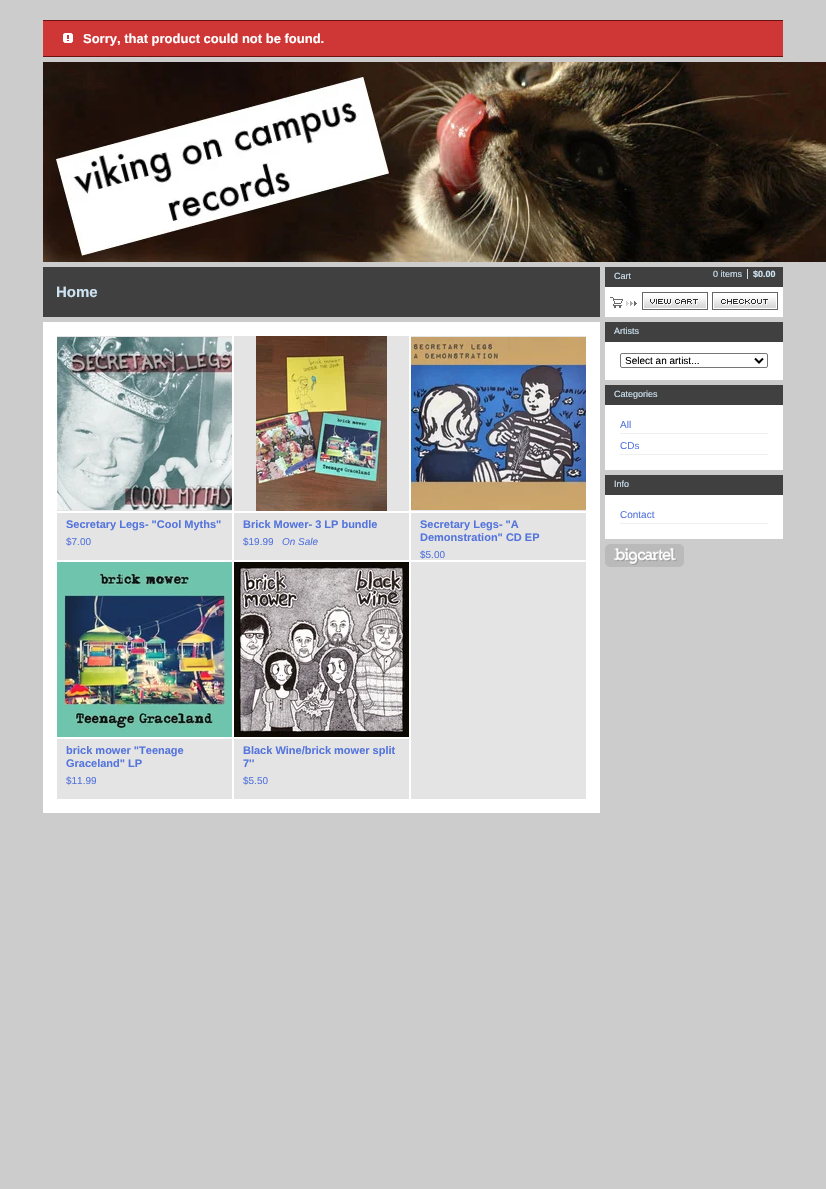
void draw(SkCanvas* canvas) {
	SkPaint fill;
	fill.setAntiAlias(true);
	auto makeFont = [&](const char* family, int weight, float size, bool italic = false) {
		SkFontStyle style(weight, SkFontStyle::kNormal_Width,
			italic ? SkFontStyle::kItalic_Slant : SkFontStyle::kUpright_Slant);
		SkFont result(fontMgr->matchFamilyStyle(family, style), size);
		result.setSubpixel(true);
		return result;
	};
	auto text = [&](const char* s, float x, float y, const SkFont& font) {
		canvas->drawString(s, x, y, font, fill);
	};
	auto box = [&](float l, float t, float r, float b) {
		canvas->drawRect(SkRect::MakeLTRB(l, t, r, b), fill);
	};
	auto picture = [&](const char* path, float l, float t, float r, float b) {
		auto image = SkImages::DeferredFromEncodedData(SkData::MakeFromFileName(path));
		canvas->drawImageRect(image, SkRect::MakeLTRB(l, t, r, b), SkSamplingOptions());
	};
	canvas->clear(0xFFCCCCCC);
	fill.setColor(0xFFCF3636);
	box(43, 21, 783, 56);
	fill.setColor(0xFF6C1010);
	box(43, 20, 783, 21);
	box(43, 56, 783, 57);
	picture("image0.png", 63, 33, 73, 43);
	picture("image1.png", 43, 62, 826, 262);
	fill.setColor(0xFF404040);
	box(43, 267, 600, 317);
	fill.setColor(0xFFFFFFFF);
	box(43, 322, 600, 813);
	fill.setColor(0xFFE4E4E4);
	box(57, 336, 586, 799);
	picture("image2.png", 232, 336, 411, 799);
	picture("image3.png", 57, 337, 232, 510);
	fill.setColor(0xFFFFFFFF);
	box(57, 511, 232, 513);
	picture("image4.png", 256, 336, 387, 511);
	box(234, 511, 409, 513);
	picture("image5.png", 411, 337, 586, 510);
	box(411, 511, 586, 513);
	box(57, 560, 586, 562);
	picture("image6.png", 57, 562, 232, 737);
	box(57, 737, 232, 739);
	picture("image7.png", 234, 562, 409, 737);
	box(234, 737, 409, 739);
	box(605, 287, 783, 317);
	picture("image8.png", 610, 297, 637, 308);
	fill.setColor(0xFF404040);
	box(605, 267, 783, 287);
	fill.setColor(0xFFCDE2F0);
	box(747, 269, 748, 279);
	picture("image9.png", 642, 292, 708, 310);
	picture("image10.png", 712, 292, 778, 310);
	fill.setColor(0xFFFFFFFF);
	box(605, 342, 783, 380);
	fill.setColor(0xFF404040);
	box(605, 322, 783, 342);
	fill.setStyle(SkPaint::kStroke_Style);
	fill.setStrokeWidth(1);
	fill.setColor(0xFF767676);
	canvas->drawRoundRect(SkRect::MakeLTRB(620.5f, 353.5f, 767.5f, 367.5f), 1.5f, 1.5f, fill);
	fill.setStrokeWidth(2);
	fill.setColor(0xFF000000);
	canvas->drawPath(SkPathBuilder().moveTo(755, 358.5f).lineTo(759, 362.5f).lineTo(763, 358.5f).detach(), fill);
	fill.setStyle(SkPaint::kFill_Style);
	fill.setColor(0xFFFFFFFF);
	box(605, 405, 783, 470);
	fill.setColor(0xFF404040);
	box(605, 385, 783, 405);
	fill.setColor(0xFFEFEFEF);
	box(620, 433, 768, 434);
	box(620, 454, 768, 455);
	fill.setColor(0xFFFFFFFF);
	box(605, 495, 783, 539);
	fill.setColor(0xFF404040);
	box(605, 475, 783, 495);
	fill.setColor(0xFFEFEFEF);
	box(620, 523, 768, 524);
	picture("image11.png", 605, 544, 684, 567);
	auto font1 = makeFont("Liberation Sans", 700, 13);
	fill.setColor(0xFFFFFFFF);
	text("Sorry, that product could not be found.", 83, 43, font1);
	auto font2 = makeFont("Liberation Sans", 700, 15);
	fill.setColor(0xFFCDE2F0);
	text("Home", 56, 297, font2);
	auto font3 = makeFont("Liberation Sans", 700, 11);
	fill.setColor(0xFF5575DD);
	text("Secretary Legs- \"Cool Myths\"", 66, 528, font3);
	auto font4 = makeFont("Liberation Sans", 400, 10);
	text("$7.00", 66, 545, font4);
	text("Brick Mower- 3 LP bundle", 243, 528, font3);
	text("$19.99", 243, 545, font4);
	auto font5 = makeFont("Liberation Sans", 400, 10, true);
	text("On Sale", 282, 545, font5);
	text("Secretary Legs- \"A", 420, 528, font3);
	text("Demonstration\" CD EP", 420, 541, font3);
	text("$5.00", 420, 558, font4);
	text("brick mower \"Teenage", 66, 754, font3);
	text("Graceland\" LP", 66, 767, font3);
	text("$11.99", 66, 784, font4);
	text("Black Wine/brick mower split", 243, 754, font3);
	text("7''", 243, 767, font3);
	text("$5.50", 243, 784, font4);
	auto font6 = makeFont("Liberation Sans", 400, 9);
	fill.setColor(0xFFCDE2F0);
	text("Cart", 614, 279, font6);
	text("0 items", 713, 277, font6);
	auto font7 = makeFont("Liberation Sans", 700, 9);
	text("$0.00", 753, 277, font7);
	text("Artists", 614, 334, font6);
	fill.setColor(0xFF000000);
	text("Select an artist...", 625, 364, font4);
	fill.setColor(0xFFCDE2F0);
	text("Categories", 614, 397, font6);
	fill.setColor(0xFF5575DD);
	text("All", 620, 428, font4);
	text("CDs", 620, 449, font4);
	fill.setColor(0xFFCDE2F0);
	text("Info", 614, 487, font6);
	fill.setColor(0xFF5575DD);
	text("Contact", 620, 518, font4);
}
